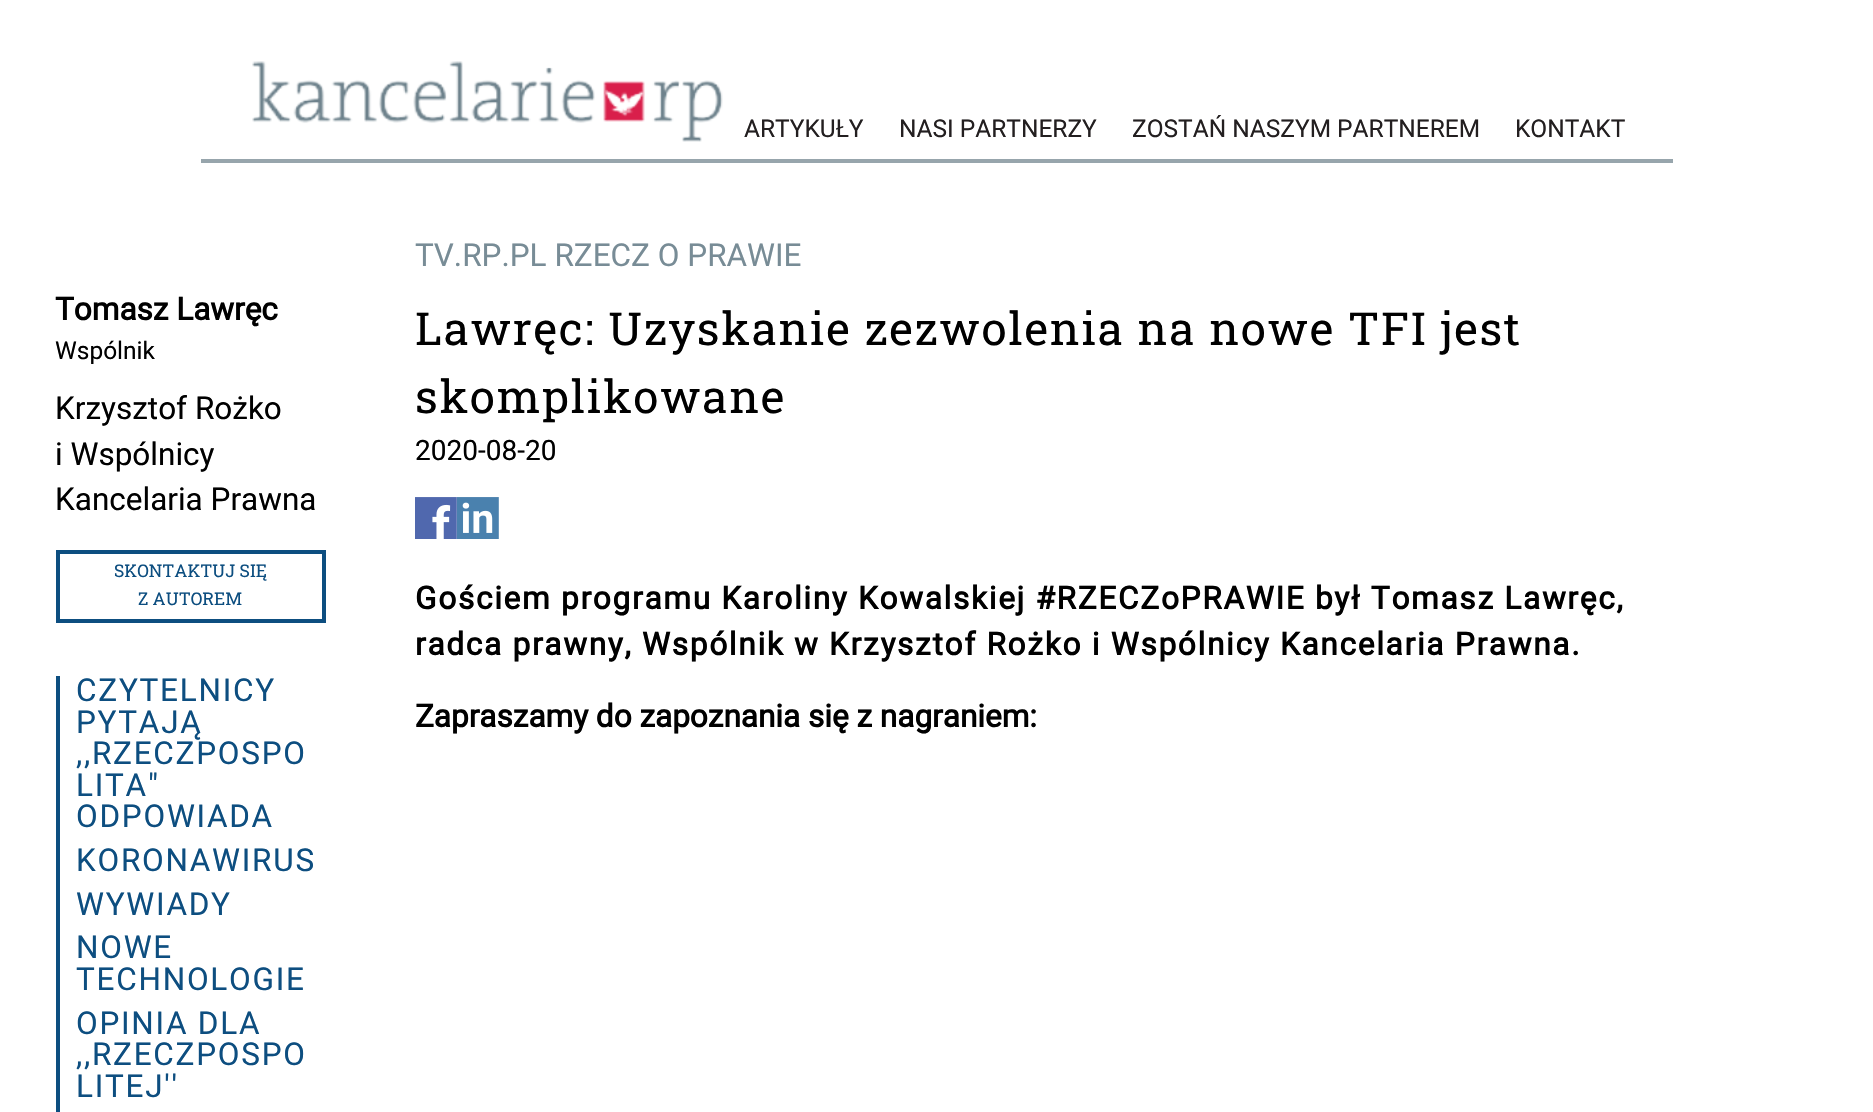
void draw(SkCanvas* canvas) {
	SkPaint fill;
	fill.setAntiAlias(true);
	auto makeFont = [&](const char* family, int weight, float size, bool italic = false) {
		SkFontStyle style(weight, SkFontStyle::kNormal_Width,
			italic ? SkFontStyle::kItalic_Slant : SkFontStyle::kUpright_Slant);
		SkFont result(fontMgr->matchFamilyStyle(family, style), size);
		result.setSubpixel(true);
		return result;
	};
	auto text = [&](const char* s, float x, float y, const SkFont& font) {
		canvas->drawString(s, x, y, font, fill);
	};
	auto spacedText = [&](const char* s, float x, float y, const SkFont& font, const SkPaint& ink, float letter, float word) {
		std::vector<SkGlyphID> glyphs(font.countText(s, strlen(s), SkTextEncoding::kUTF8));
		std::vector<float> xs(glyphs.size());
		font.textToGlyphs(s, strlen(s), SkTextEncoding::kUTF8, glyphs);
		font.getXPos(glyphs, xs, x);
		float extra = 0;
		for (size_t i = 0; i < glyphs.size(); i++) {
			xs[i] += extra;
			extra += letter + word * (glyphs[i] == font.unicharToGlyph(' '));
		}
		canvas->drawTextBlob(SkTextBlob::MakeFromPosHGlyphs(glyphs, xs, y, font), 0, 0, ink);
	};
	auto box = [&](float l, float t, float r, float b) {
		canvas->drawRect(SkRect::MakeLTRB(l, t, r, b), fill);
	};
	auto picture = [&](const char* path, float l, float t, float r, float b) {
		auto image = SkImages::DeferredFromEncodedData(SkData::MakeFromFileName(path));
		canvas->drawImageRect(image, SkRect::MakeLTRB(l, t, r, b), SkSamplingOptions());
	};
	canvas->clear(0xFFFFFFFF);
	fill.setColor(0xFF97A5AC);
	box(201, 159, 1673, 163);
	picture("image0.png", 252, 61, 723, 142);
	fill.setStyle(SkPaint::kStroke_Style);
	fill.setStrokeWidth(4);
	fill.setColor(0xFF0D4E80);
	canvas->drawRect(SkRect::MakeLTRB(58, 552, 324, 621), fill);
	fill.setStyle(SkPaint::kFill_Style);
	box(56, 676, 60, 1112);
	picture("image1.png", 415, 497, 457, 539);
	picture("image2.png", 457, 497, 499, 539);
	auto font1 = makeFont("Roboto", 400, 24.5f);
	fill.setColor(0xFF231F20);
	text("ARTYKUŁY", 744, 137, font1);
	text("NASI PARTNERZY", 899, 137, font1);
	text("ZOSTAŃ NASZYM PARTNEREM", 1132, 137, font1);
	text("KONTAKT", 1515, 137, font1);
	auto font2 = makeFont("Roboto", 700, 31.5f);
	fill.setColor(0xFF000000);
	text("Tomasz Lawręc", 55, 320, font2);
	text("Wspólnik", 55, 359, font1);
	auto font3 = makeFont("Roboto", 400, 31.5f);
	text("Krzysztof Rożko", 55, 419, font3);
	text("i Wspólnicy", 55, 465, font3);
	text("Kancelaria Prawna", 55, 510, font3);
	auto font4 = makeFont("Roboto Slab", 400, 17.5f);
	fill.setColor(0xFF0D4E80);
	text("SKONTAKTUJ SIĘ", 114, 577, font4);
	text("Z AUTOREM", 138, 605, font4);
	spacedText("CZYTELNICY", 76, 701, font3, fill, 1.75f, 0);
	spacedText("PYTAJĄ", 76, 733, font3, fill, 1.75f, 0);
	spacedText(",,RZECZPOSPO", 76, 764, font3, fill, 1.75f, 0);
	spacedText("LITA\"", 76, 796, font3, fill, 1.75f, 0);
	spacedText("ODPOWIADA", 76, 827, font3, fill, 1.75f, 0);
	spacedText("KORONAWIRUS", 76, 871, font3, fill, 1.75f, 0);
	spacedText("WYWIADY", 76, 915, font3, fill, 1.75f, 0);
	spacedText("NOWE", 76, 958, font3, fill, 1.75f, 0);
	spacedText("TECHNOLOGIE", 76, 990, font3, fill, 1.75f, 0);
	spacedText("OPINIA DLA", 76, 1034, font3, fill, 1.75f, 0);
	spacedText(",,RZECZPOSPO", 76, 1065, font3, fill, 1.75f, 0);
	spacedText("LITEJ''", 76, 1097, font3, fill, 1.75f, 0);
	fill.setColor(0xFF788C96);
	text("TV.RP.PL RZECZ O PRAWIE", 415, 266, font3);
	auto font5 = makeFont("Roboto Slab", 400, 45.5f);
	fill.setColor(0xFF000000);
	spacedText("Lawręc: Uzyskanie zezwolenia na nowe TFI jest", 415, 345, font5, fill, 1.75f, 0);
	spacedText("skomplikowane", 415, 413, font5, fill, 1.75f, 0);
	auto font6 = makeFont("Roboto", 400, 28);
	text("2020-08-20", 415, 460, font6);
	spacedText("Gościem programu Karoliny Kowalskiej #RZECZoPRAWIE był Tomasz Lawręc,", 415, 609, font2, fill, 1.75f, 0);
	spacedText("radca prawny, Wspólnik w Krzysztof Rożko i Wspólnicy Kancelaria Prawna.", 415, 655, font2, fill, 1.75f, 0);
	text("Zapraszamy do zapoznania się z nagraniem:", 415, 727, font2);
}
